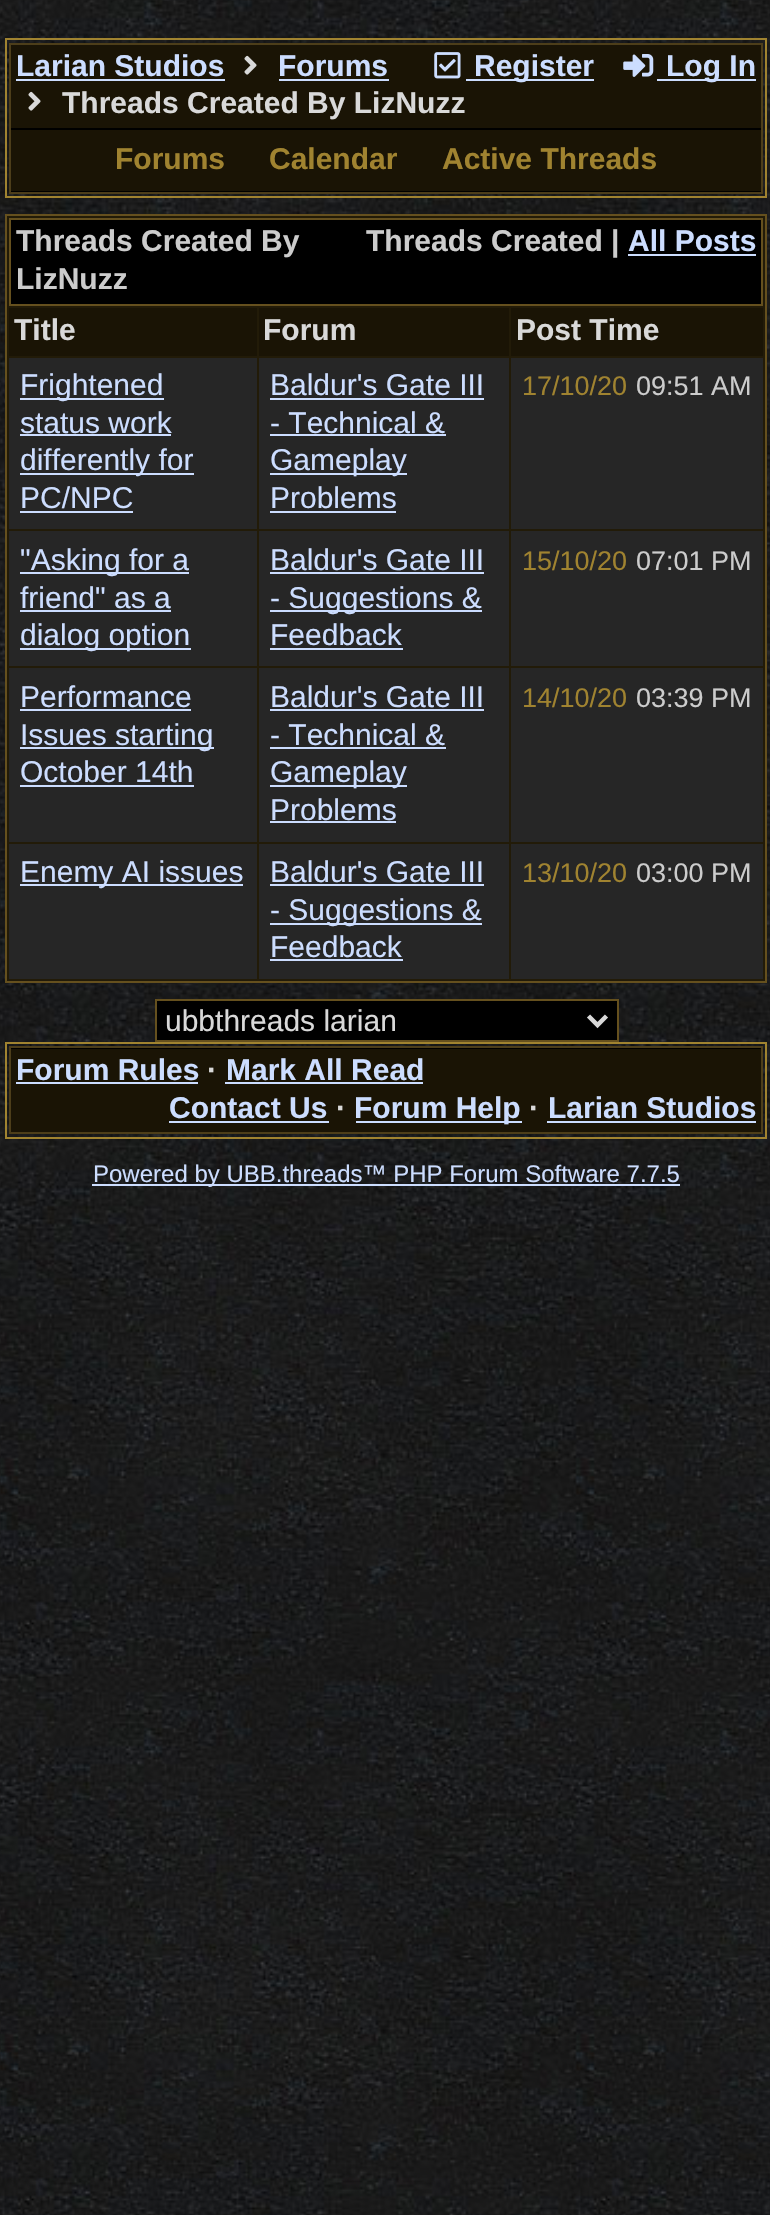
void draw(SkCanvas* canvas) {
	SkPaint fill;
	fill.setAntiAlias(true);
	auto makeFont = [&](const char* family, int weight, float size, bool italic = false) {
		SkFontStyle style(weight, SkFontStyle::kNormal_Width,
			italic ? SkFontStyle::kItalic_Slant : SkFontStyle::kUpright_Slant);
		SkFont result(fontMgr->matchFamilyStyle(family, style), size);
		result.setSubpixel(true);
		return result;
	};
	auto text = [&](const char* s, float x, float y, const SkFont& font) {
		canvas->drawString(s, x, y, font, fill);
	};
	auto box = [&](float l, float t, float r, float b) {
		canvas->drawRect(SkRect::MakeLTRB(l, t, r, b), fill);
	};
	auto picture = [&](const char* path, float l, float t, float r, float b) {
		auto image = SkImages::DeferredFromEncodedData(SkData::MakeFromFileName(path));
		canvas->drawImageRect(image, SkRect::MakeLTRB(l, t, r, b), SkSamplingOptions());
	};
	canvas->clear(0xFFFFFFFF);
	picture("image0.png", 0, 0, 770, 2215);
	fill.setStyle(SkPaint::kStroke_Style);
	fill.setStrokeWidth(2);
	fill.setColor(0xFFA08330);
	canvas->drawRect(SkRect::MakeLTRB(6, 39, 766, 197), fill);
	fill.setStyle(SkPaint::kFill_Style);
	fill.setColor(0xFF000000);
	box(11, 191, 761, 192);
	fill.setStyle(SkPaint::kStroke_Style);
	fill.setColor(0xFF4D3E1A);
	canvas->drawRect(SkRect::MakeLTRB(10, 44, 762, 193), fill);
	fill.setStyle(SkPaint::kFill_Style);
	fill.setColor(0xFF1A1405);
	box(11, 45, 761, 128);
	fill.setColor(0xFFCCDDFF);
	box(16, 79, 225, 81);
	picture("image1.png", 244, 55, 257, 75);
	box(279, 79, 389, 81);
	picture("image1.png", 28, 91, 41, 111);
	picture("image2.png", 434, 52, 461, 79);
	box(466, 79, 594, 81);
	picture("image3.png", 623, 54, 654, 77);
	box(657, 79, 756, 81);
	fill.setColor(0xFF1A1405);
	box(11, 130, 761, 191);
	fill.setColor(0xFF000000);
	box(11, 128, 761, 130);
	fill.setColor(0xFF221B08);
	canvas->drawRect(SkRect::MakeLTRB(6, 215, 766, 982), fill);
	fill.setStyle(SkPaint::kStroke_Style);
	fill.setColor(0xFF65501E);
	canvas->drawRect(SkRect::MakeLTRB(6, 215, 766, 982), fill);
	fill.setStyle(SkPaint::kFill_Style);
	fill.setColor(0xFF000000);
	canvas->drawRect(SkRect::MakeLTRB(10, 219, 762, 305), fill);
	fill.setStyle(SkPaint::kStroke_Style);
	fill.setColor(0xFF65501E);
	canvas->drawRect(SkRect::MakeLTRB(10, 219, 762, 305), fill);
	fill.setStyle(SkPaint::kFill_Style);
	fill.setColor(0xFFCCDDFF);
	box(628, 254, 756, 256);
	fill.setColor(0xFF1A1405);
	box(9, 308, 257, 356);
	box(259, 308, 509, 356);
	box(511, 308, 763, 356);
	fill.setColor(0xFF262626);
	box(9, 358, 257, 529);
	fill.setColor(0xFFCCDDFF);
	box(20, 398, 164, 400);
	box(20, 434, 171, 436);
	box(20, 473, 194, 475);
	box(20, 511, 133, 513);
	fill.setColor(0xFF262626);
	box(259, 358, 509, 529);
	fill.setColor(0xFFCCDDFF);
	box(270, 398, 484, 400);
	box(270, 434, 446, 436);
	box(270, 473, 407, 475);
	box(270, 511, 396, 513);
	fill.setColor(0xFF262626);
	box(511, 358, 763, 529);
	box(9, 531, 257, 666);
	fill.setColor(0xFFCCDDFF);
	box(20, 572, 189, 574);
	box(20, 610, 171, 612);
	box(20, 648, 191, 650);
	fill.setColor(0xFF262626);
	box(259, 531, 509, 666);
	fill.setColor(0xFFCCDDFF);
	box(270, 572, 484, 574);
	box(270, 610, 482, 612);
	box(270, 648, 403, 650);
	fill.setColor(0xFF262626);
	box(511, 531, 763, 666);
	box(9, 668, 257, 842);
	fill.setColor(0xFFCCDDFF);
	box(20, 709, 191, 711);
	box(20, 747, 214, 749);
	box(20, 785, 194, 787);
	fill.setColor(0xFF262626);
	box(259, 668, 509, 842);
	fill.setColor(0xFFCCDDFF);
	box(270, 709, 484, 711);
	box(270, 747, 446, 749);
	box(270, 785, 407, 787);
	box(270, 821, 396, 823);
	fill.setColor(0xFF262626);
	box(511, 668, 763, 842);
	box(9, 844, 257, 979);
	fill.setColor(0xFFCCDDFF);
	box(20, 884, 243, 886);
	fill.setColor(0xFF262626);
	box(259, 844, 509, 979);
	fill.setColor(0xFFCCDDFF);
	box(270, 884, 484, 886);
	box(270, 923, 482, 925);
	box(270, 959, 403, 961);
	fill.setColor(0xFF262626);
	box(511, 844, 763, 979);
	fill.setColor(0xFF000000);
	canvas->drawRect(SkRect::MakeLTRB(156, 1000, 618, 1041), fill);
	fill.setStyle(SkPaint::kStroke_Style);
	fill.setColor(0xFF65501E);
	canvas->drawRect(SkRect::MakeLTRB(156, 1000, 618, 1041), fill);
	fill.setStrokeWidth(4.5f);
	fill.setColor(0xFFD9D9D9);
	canvas->drawPath(SkPathBuilder().moveTo(588.5f, 1016).lineTo(597.5f, 1025).lineTo(606.5f, 1016).detach(), fill);
	fill.setStrokeWidth(2);
	fill.setColor(0xFFA08330);
	canvas->drawRect(SkRect::MakeLTRB(6, 1043, 766, 1138), fill);
	fill.setStyle(SkPaint::kFill_Style);
	fill.setColor(0xFF000000);
	box(11, 1048, 761, 1049);
	fill.setStyle(SkPaint::kStroke_Style);
	fill.setColor(0xFF4D3E1A);
	canvas->drawRect(SkRect::MakeLTRB(10, 1047, 762, 1133), fill);
	fill.setStyle(SkPaint::kFill_Style);
	fill.setColor(0xFF1A1405);
	box(11, 1049, 761, 1132);
	fill.setColor(0xFFCCDDFF);
	box(16, 1082, 198, 1084);
	box(225, 1082, 423, 1084);
	box(169, 1121, 329, 1123);
	box(356, 1121, 522, 1123);
	box(547, 1121, 756, 1123);
	box(92, 1184, 680, 1186);
	auto font1 = makeFont("Liberation Sans", 700, 30);
	text("Larian Studios", 16, 76, font1);
	text("Forums", 278, 76, font1);
	fill.setColor(0xFFD9D9D9);
	text("Threads Created By LizNuzz", 62, 113, font1);
	fill.setColor(0xFFCCDDFF);
	text("Register", 474, 76, font1);
	text("Log In", 666, 76, font1);
	fill.setColor(0xFFA08330);
	text("Forums", 115, 169, font1);
	text("Calendar", 269, 169, font1);
	text("Active Threads", 442, 169, font1);
	fill.setColor(0xFFCCCCCC);
	text("Threads Created By", 16, 251, font1);
	text("Threads Created |", 366, 251, font1);
	fill.setColor(0xFFCCDDFF);
	text("All Posts", 628, 251, font1);
	fill.setColor(0xFFCCCCCC);
	text("LizNuzz", 16, 289, font1);
	fill.setColor(0xFFD9D9D9);
	text("Title", 14, 340, font1);
	text("Forum", 263, 340, font1);
	text("Post Time", 516, 340, font1);
	auto font2 = makeFont("Liberation Sans", 400, 30);
	fill.setColor(0xFFCCDDFF);
	text("Frightened", 20, 395, font2);
	text("status work", 20, 433, font2);
	text("differently for", 20, 470, font2);
	text("PC/NPC", 20, 508, font2);
	text("Baldur's Gate III", 270, 395, font2);
	text("- Technical &", 270, 433, font2);
	text("Gameplay", 270, 470, font2);
	text("Problems", 270, 508, font2);
	auto font3 = makeFont("Liberation Sans", 400, 27);
	fill.setColor(0xFFA08330);
	text("17/10/20", 522, 395, font3);
	fill.setColor(0xFFCCCCCC);
	text("09:51 AM", 636, 395, font3);
	fill.setColor(0xFFCCDDFF);
	text("\"Asking for a", 20, 570, font2);
	text("friend\" as a", 20, 608, font2);
	text("dialog option", 20, 645, font2);
	text("Baldur's Gate III", 270, 570, font2);
	text("- Suggestions &", 270, 608, font2);
	text("Feedback", 270, 645, font2);
	fill.setColor(0xFFA08330);
	text("15/10/20", 522, 570, font3);
	fill.setColor(0xFFCCCCCC);
	text("07:01 PM", 636, 570, font3);
	fill.setColor(0xFFCCDDFF);
	text("Performance", 20, 707, font2);
	text("Issues starting", 20, 745, font2);
	text("October 14th", 20, 782, font2);
	text("Baldur's Gate III", 270, 707, font2);
	text("- Technical &", 270, 745, font2);
	text("Gameplay", 270, 782, font2);
	text("Problems", 270, 820, font2);
	fill.setColor(0xFFA08330);
	text("14/10/20", 522, 707, font3);
	fill.setColor(0xFFCCCCCC);
	text("03:39 PM", 636, 707, font3);
	fill.setColor(0xFFCCDDFF);
	text("Enemy AI issues", 20, 882, font2);
	text("Baldur's Gate III", 270, 882, font2);
	text("- Suggestions &", 270, 920, font2);
	text("Feedback", 270, 957, font2);
	fill.setColor(0xFFA08330);
	text("13/10/20", 522, 882, font3);
	fill.setColor(0xFFCCCCCC);
	text("03:00 PM", 636, 882, font3);
	fill.setColor(0xFFD9D9D9);
	text("ubbthreads larian", 165, 1031, font2);
	fill.setColor(0xFFCCDDFF);
	text("Forum Rules", 16, 1080, font1);
	fill.setColor(0xFFD9D9D9);
	text("·", 207, 1080, font1);
	fill.setColor(0xFFCCDDFF);
	text("Mark All Read", 226, 1080, font1);
	text("Contact Us", 169, 1118, font1);
	fill.setColor(0xFFD9D9D9);
	text("·", 336, 1118, font1);
	fill.setColor(0xFFCCDDFF);
	text("Forum Help", 354, 1118, font1);
	fill.setColor(0xFFD9D9D9);
	text("·", 529, 1118, font1);
	fill.setColor(0xFFCCDDFF);
	text("Larian Studios", 548, 1118, font1);
	auto font4 = makeFont("Liberation Sans", 400, 24);
	text("Powered by UBB.threads™ PHP Forum Software 7.7.5", 93, 1182, font4);
}
